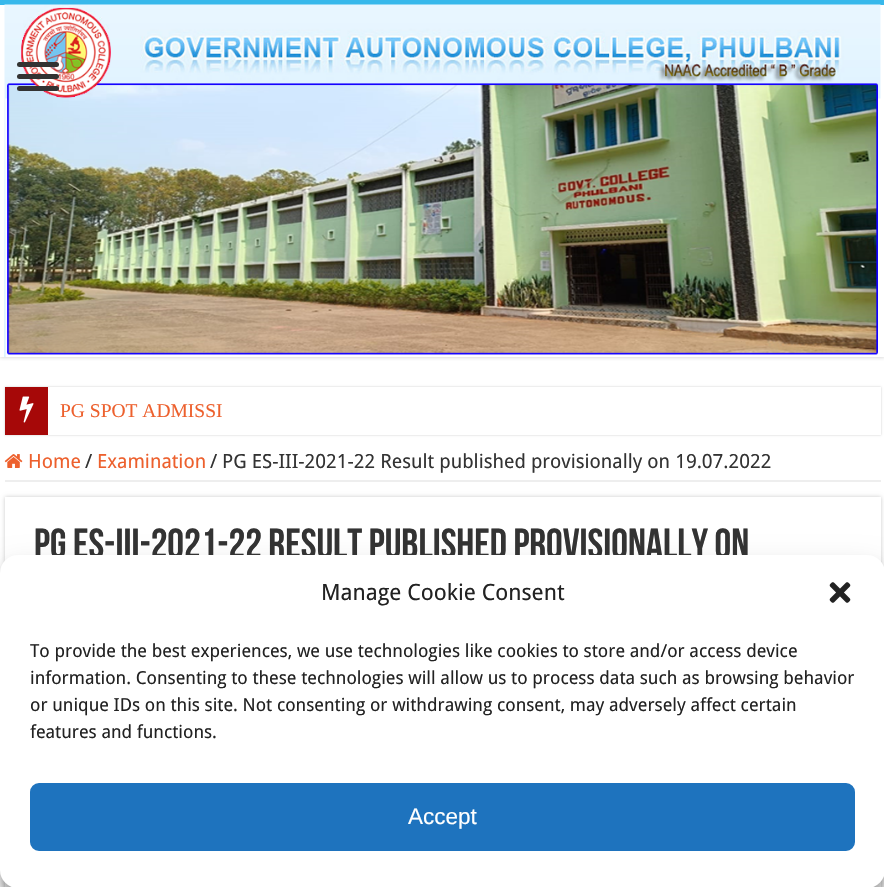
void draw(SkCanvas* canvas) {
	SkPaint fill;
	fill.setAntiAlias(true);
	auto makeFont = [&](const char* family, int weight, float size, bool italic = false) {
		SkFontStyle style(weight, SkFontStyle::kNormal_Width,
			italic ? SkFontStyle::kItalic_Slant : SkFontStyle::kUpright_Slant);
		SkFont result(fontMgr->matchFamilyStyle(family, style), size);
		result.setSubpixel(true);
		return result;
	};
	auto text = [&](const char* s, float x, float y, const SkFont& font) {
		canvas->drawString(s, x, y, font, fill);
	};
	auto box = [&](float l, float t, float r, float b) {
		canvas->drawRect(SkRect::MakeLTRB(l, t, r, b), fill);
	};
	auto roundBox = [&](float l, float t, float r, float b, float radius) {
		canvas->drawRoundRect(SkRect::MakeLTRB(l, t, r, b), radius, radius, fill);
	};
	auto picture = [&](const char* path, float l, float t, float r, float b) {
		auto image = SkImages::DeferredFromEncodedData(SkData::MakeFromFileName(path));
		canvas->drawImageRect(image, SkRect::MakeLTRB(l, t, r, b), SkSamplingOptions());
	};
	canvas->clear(0xFFFFFFFF);
	canvas->save();
	canvas->clipRect(SkRect::MakeLTRB(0, 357, 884, 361));
	fill.setColor(0xFFCACACA);
	fill.setMaskFilter(SkMaskFilter::MakeBlur(kNormal_SkBlurStyle, 2));
	canvas->drawRect(SkRect::MakeLTRB(0, 0, 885, 357), fill);
	fill.setMaskFilter(nullptr);
	canvas->restore();
	fill.setColor(0xFF37B8EB);
	box(0, 0, 884, 5);
	picture("image0.png", 4, 4, 881, 357);
	fill.setColor(0xFF333333);
	roundBox(17, 62, 59, 67, 2.5f);
	roundBox(17, 74, 59, 79, 2.5f);
	roundBox(17, 86, 59, 91, 2.5f);
	fill.setColor(0xFFCACACA);
	fill.setMaskFilter(SkMaskFilter::MakeBlur(kNormal_SkBlurStyle, 1));
	canvas->drawRect(SkRect::MakeLTRB(5, 387, 881, 435), fill);
	fill.setMaskFilter(nullptr);
	fill.setColor(0xFFFFFFFF);
	box(48, 387, 881, 435);
	fill.setColor(0xFFA60808);
	box(5, 387, 48, 435);
	picture("image1.png", 19, 396, 34, 423);
	fill.setColor(0xFFEEEEEE);
	box(5, 480, 881, 482);
	picture("image2.png", 4, 454, 23, 468);
	fill.setColor(0xFFCACACA);
	fill.setMaskFilter(SkMaskFilter::MakeBlur(kNormal_SkBlurStyle, 2));
	canvas->drawRect(SkRect::MakeLTRB(5, 497, 881, 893), fill);
	fill.setMaskFilter(nullptr);
	fill.setColor(0xFFFFFFFF);
	box(5, 497, 881, 887);
	fill.setColor(0x3B000000);
	fill.setMaskFilter(SkMaskFilter::MakeBlur(kNormal_SkBlurStyle, 4.5f));
	canvas->drawRoundRect(SkRect::MakeLTRB(0, 564, 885, 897), 18, 18, fill);
	fill.setMaskFilter(nullptr);
	fill.setColor(0x30000000);
	fill.setMaskFilter(SkMaskFilter::MakeBlur(kNormal_SkBlurStyle, 15));
	canvas->drawRoundRect(SkRect::MakeLTRB(0, 570, 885, 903), 18, 18, fill);
	fill.setMaskFilter(nullptr);
	auto font1 = makeFont("Liberation Serif", 400, 19.5f);
	fill.setColor(0xFFED602D);
	text("PG SPOT ADMISSI", 60, 417, font1);
	auto font2 = makeFont("Droid Sans", 400, 19.5f);
	text("Home", 28, 468, font2);
	fill.setColor(0xFF333333);
	text("/", 85, 468, font2);
	fill.setColor(0xFFED602D);
	text("Examination", 97, 468, font2);
	fill.setColor(0xFF333333);
	text("/", 210, 468, font2);
	text("PG ES-III-2021-22 Result published provisionally on 19.07.2022", 222, 468, font2);
	auto font3 = makeFont("Bebas Neue", 700, 42);
	text("PG ES-III-2021-22 Result published provisionally on", 34, 558, font3);
	fill.setColor(0xFFFFFFFF);
	roundBox(0, 555, 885, 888, 18);
	auto font4 = makeFont("Droid Sans", 400, 22.5f);
	fill.setColor(0xFF222222);
	text("Manage Cookie Consent", 321, 600, font4);
	picture("image3.png", 829, 582, 851, 603);
	auto font5 = makeFont("Droid Sans", 400, 18);
	text("To provide the best experiences, we use technologies like cookies to store and/or access device", 30, 657, font5);
	text("information. Consenting to these technologies will allow us to process data such as browsing behavior", 30, 684, font5);
	text("or unique IDs on this site. Not consenting or withdrawing consent, may adversely affect certain", 30, 711, font5);
	text("features and functions.", 30, 738, font5);
	fill.setColor(0xFF1E73BE);
	canvas->drawRoundRect(SkRect::MakeLTRB(31, 784, 854, 850), 8, 8, fill);
	fill.setStyle(SkPaint::kStroke_Style);
	fill.setStrokeWidth(2);
	canvas->drawRoundRect(SkRect::MakeLTRB(31, 784, 854, 850), 8, 8, fill);
	auto font6 = makeFont("Liberation Sans", 400, 22.5f);
	fill.setStyle(SkPaint::kFill_Style);
	fill.setColor(0xFFFFFFFF);
	text("Accept", 408, 824, font6);
}
